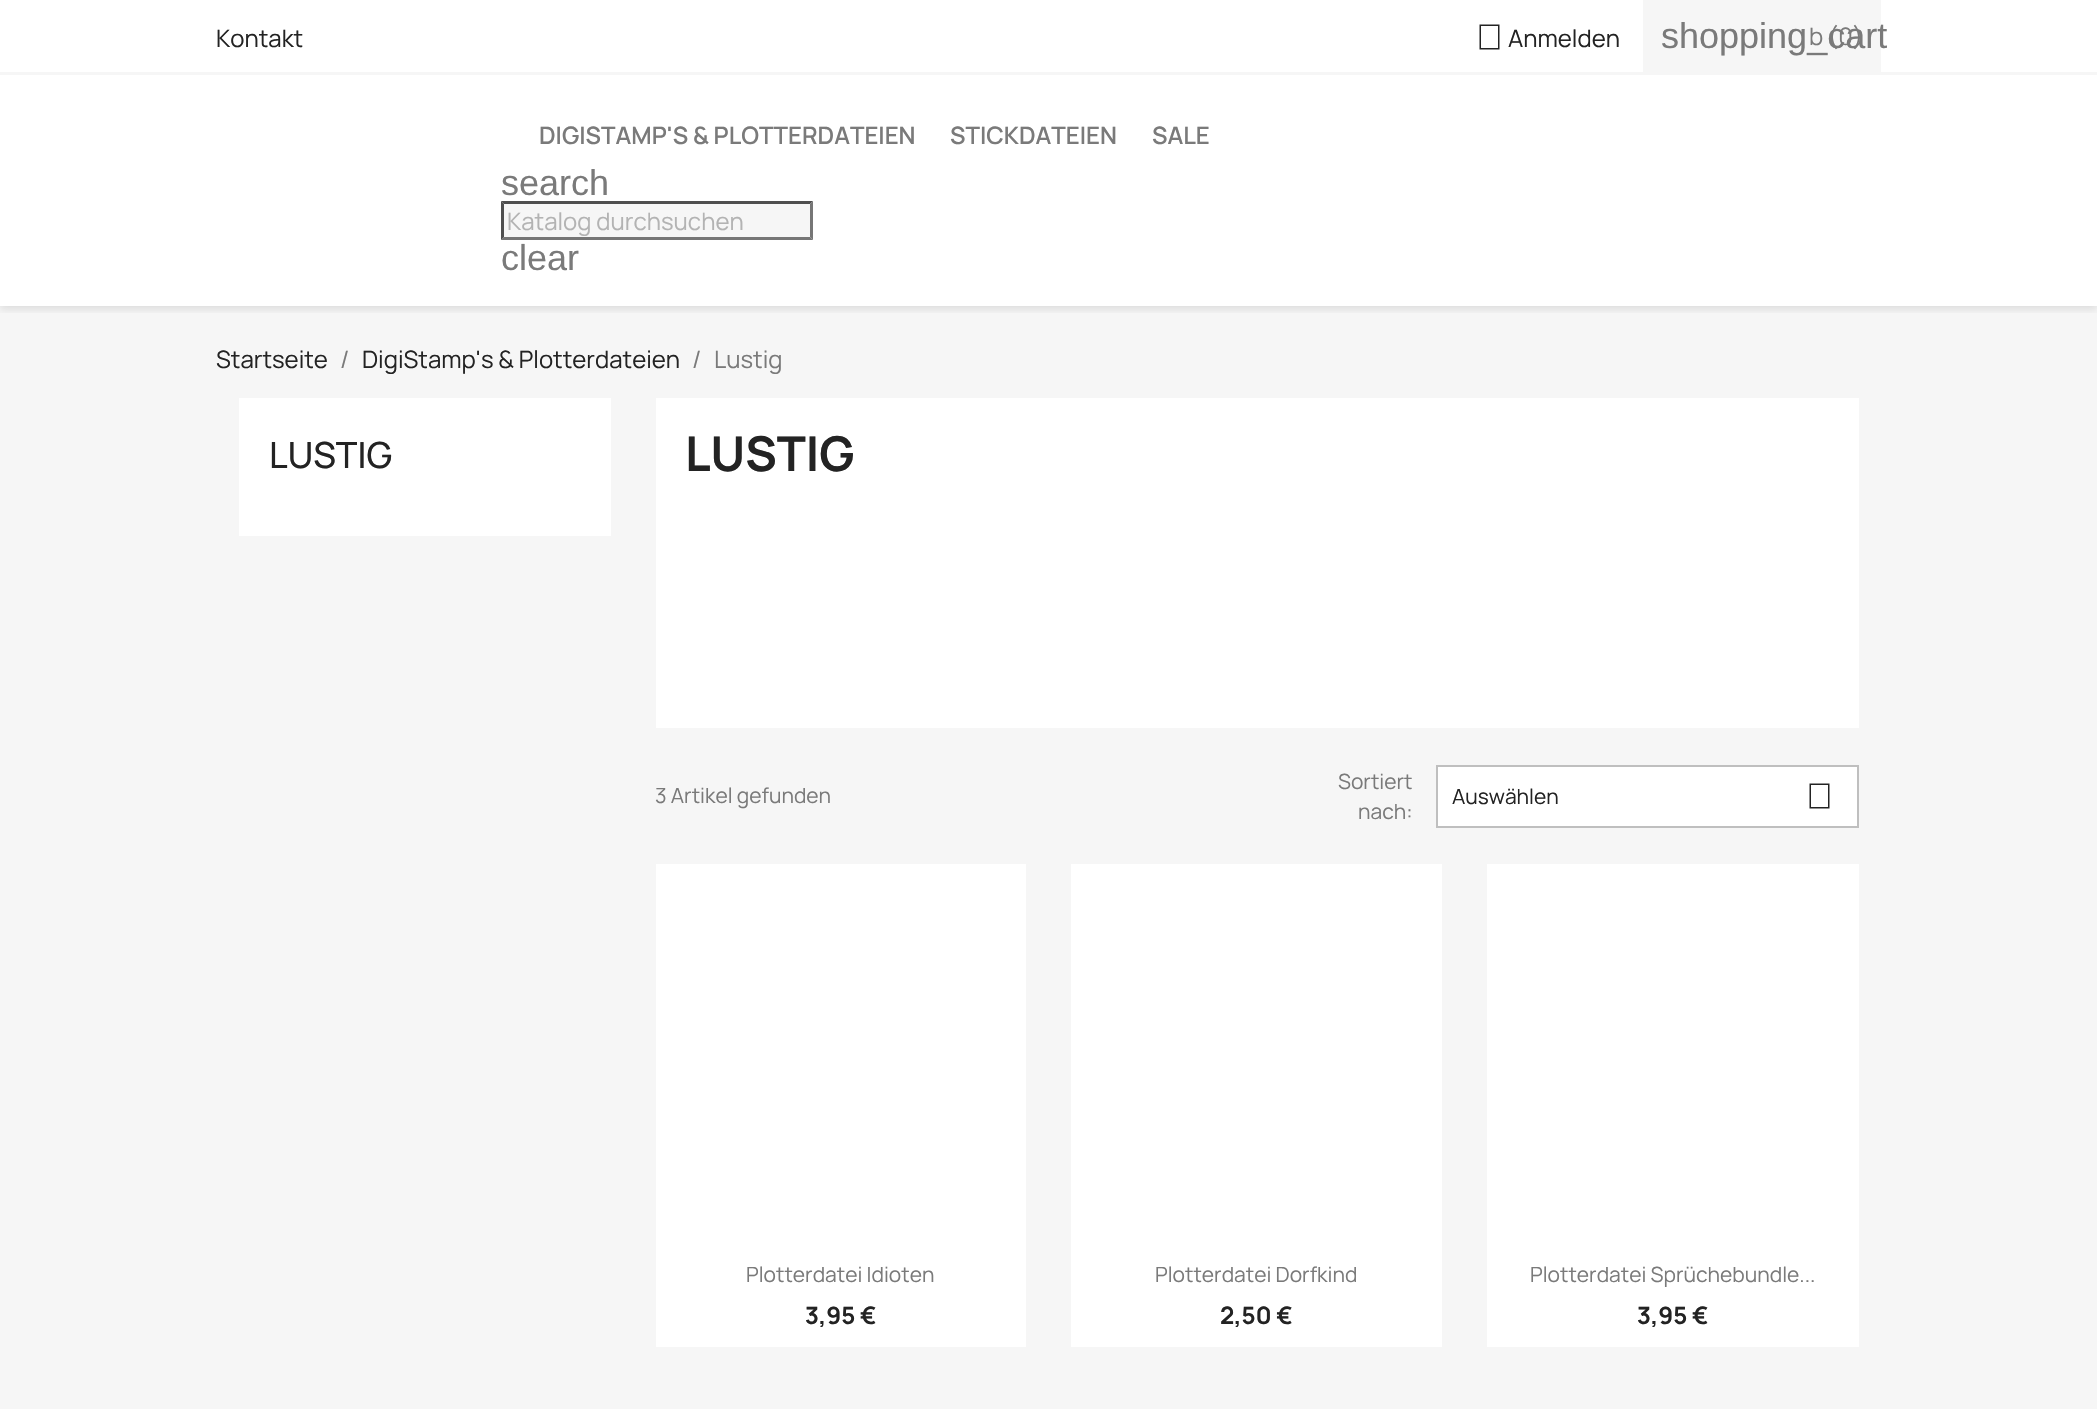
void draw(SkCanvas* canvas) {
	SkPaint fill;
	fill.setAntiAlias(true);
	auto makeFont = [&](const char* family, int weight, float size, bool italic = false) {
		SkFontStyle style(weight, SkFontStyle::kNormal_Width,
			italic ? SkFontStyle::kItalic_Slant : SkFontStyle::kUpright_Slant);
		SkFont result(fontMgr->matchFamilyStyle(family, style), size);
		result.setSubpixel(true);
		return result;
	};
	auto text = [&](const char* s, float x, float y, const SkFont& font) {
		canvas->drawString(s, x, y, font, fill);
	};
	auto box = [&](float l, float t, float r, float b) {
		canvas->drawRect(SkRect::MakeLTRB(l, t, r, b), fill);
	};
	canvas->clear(0xFFFFFFFF);
	fill.setColor(0xFFF6F6F6);
	box(0, 306, 2097, 1409);
	canvas->save();
	canvas->clipRect(SkRect::MakeLTRB(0, 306, 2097, 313));
	fill.setColor(0x1C000000);
	fill.setMaskFilter(SkMaskFilter::MakeBlur(kNormal_SkBlurStyle, 4));
	canvas->drawRect(SkRect::MakeLTRB(0, 3, 2097, 309), fill);
	fill.setMaskFilter(nullptr);
	canvas->restore();
	fill.setColor(0xFFF6F6F6);
	box(0, 72, 2097, 75);
	fill.setColor(0xFF232323);
	canvas->drawPath(SkPathBuilder().moveTo(1479.5f, 24.5f).lineTo(1499.5f, 24.5f).lineTo(1499.5f, 49.5f).lineTo(1479.5f, 49.5f).close().moveTo(1481, 26).lineTo(1481, 48).lineTo(1498, 48).lineTo(1498, 26).close().detach(), fill);
	fill.setColor(0xFFF6F6F6);
	box(1643, 0, 1881, 72);
	box(501, 201, 813, 240);
	fill.setColor(0xFF4F4F4F);
	canvas->drawPath(SkPathBuilder().moveTo(501, 201).lineTo(813, 201).lineTo(810, 204).lineTo(504, 204).close().detach(), fill);
	fill.setColor(0xFF767676);
	canvas->drawPath(SkPathBuilder().moveTo(813, 201).lineTo(813, 240).lineTo(810, 237).lineTo(810, 204).close().detach(), fill);
	canvas->drawPath(SkPathBuilder().moveTo(813, 240).lineTo(501, 240).lineTo(504, 237).lineTo(810, 237).close().detach(), fill);
	fill.setColor(0xFF4F4F4F);
	canvas->drawPath(SkPathBuilder().moveTo(501, 240).lineTo(501, 201).lineTo(504, 204).lineTo(504, 237).close().detach(), fill);
	fill.setColor(0xFFFFFFFF);
	box(239, 398, 611, 536);
	box(656, 398, 1859, 728);
	canvas->drawRect(SkRect::MakeLTRB(1437, 766, 1858, 827), fill);
	fill.setStyle(SkPaint::kStroke_Style);
	fill.setStrokeWidth(2);
	fill.setColor(0xFFBFBFBF);
	canvas->drawRect(SkRect::MakeLTRB(1437, 766, 1858, 827), fill);
	fill.setStyle(SkPaint::kFill_Style);
	fill.setColor(0xFF232323);
	canvas->drawPath(SkPathBuilder().moveTo(1809.5f, 783.5f).lineTo(1829.5f, 783.5f).lineTo(1829.5f, 808.5f).lineTo(1809.5f, 808.5f).close().moveTo(1811, 785).lineTo(1811, 807).lineTo(1828, 807).lineTo(1828, 785).close().detach(), fill);
	fill.setColor(0xFFFFFFFF);
	box(656, 864, 1026, 1347);
	box(1071, 864, 1442, 1347);
	box(1487, 864, 1859, 1347);
	auto font1 = makeFont("Manrope", 400, 24);
	fill.setColor(0xFF232323);
	text("Kontakt", 216, 47, font1);
	text("Anmelden", 1508, 47, font1);
	auto font2 = makeFont("Liberation Sans", 400, 36);
	fill.setColor(0xFF7A7A7A);
	text("shopping_cart", 1661, 48, font2);
	text("b (0)", 1809, 45, font1);
	auto font3 = makeFont("Manrope", 600, 24);
	text("DIGISTAMP'S & PLOTTERDATEIEN", 539, 144, font3);
	text("STICKDATEIEN", 950, 144, font3);
	text("SALE", 1152, 144, font3);
	text("search", 501, 195, font2);
	fill.setColor(0xFFB3B3B3);
	text("Katalog durchsuchen", 507, 230, font1);
	fill.setColor(0xFF7A7A7A);
	text("clear", 501, 270, font2);
	fill.setColor(0xFF232323);
	text("Startseite", 216, 368, font1);
	fill.setColor(0xFF7A7A7A);
	text("/", 340, 368, font1);
	fill.setColor(0xFF232323);
	text("DigiStamp's & Plotterdateien", 362, 368, font1);
	fill.setColor(0xFF7A7A7A);
	text("/", 692, 368, font1);
	text("Lustig", 714, 368, font1);
	auto font4 = makeFont("Manrope", 500, 36);
	fill.setColor(0xFF232323);
	text("LUSTIG", 269, 468, font4);
	auto font5 = makeFont("Manrope", 700, 48);
	text("LUSTIG", 685, 471, font5);
	auto font6 = makeFont("Manrope", 400, 21);
	fill.setColor(0xFF7A7A7A);
	text("3 Artikel gefunden", 655, 803, font6);
	text("Sortiert", 1338, 789, font6);
	text("nach:", 1358, 819, font6);
	fill.setColor(0xFF232323);
	text("Auswählen", 1452, 804, font6);
	fill.setColor(0xFF7A7A7A);
	text("Plotterdatei Idioten", 746, 1282, font6);
	auto font7 = makeFont("Manrope", 700, 24);
	fill.setColor(0xFF232323);
	text("3,95 €", 805, 1324, font7);
	fill.setColor(0xFF7A7A7A);
	text("Plotterdatei Dorfkind", 1155, 1282, font6);
	fill.setColor(0xFF232323);
	text("2,50 €", 1220, 1324, font7);
	fill.setColor(0xFF7A7A7A);
	text("Plotterdatei Sprüchebundle...", 1530, 1282, font6);
	fill.setColor(0xFF232323);
	text("3,95 €", 1637, 1324, font7);
}
